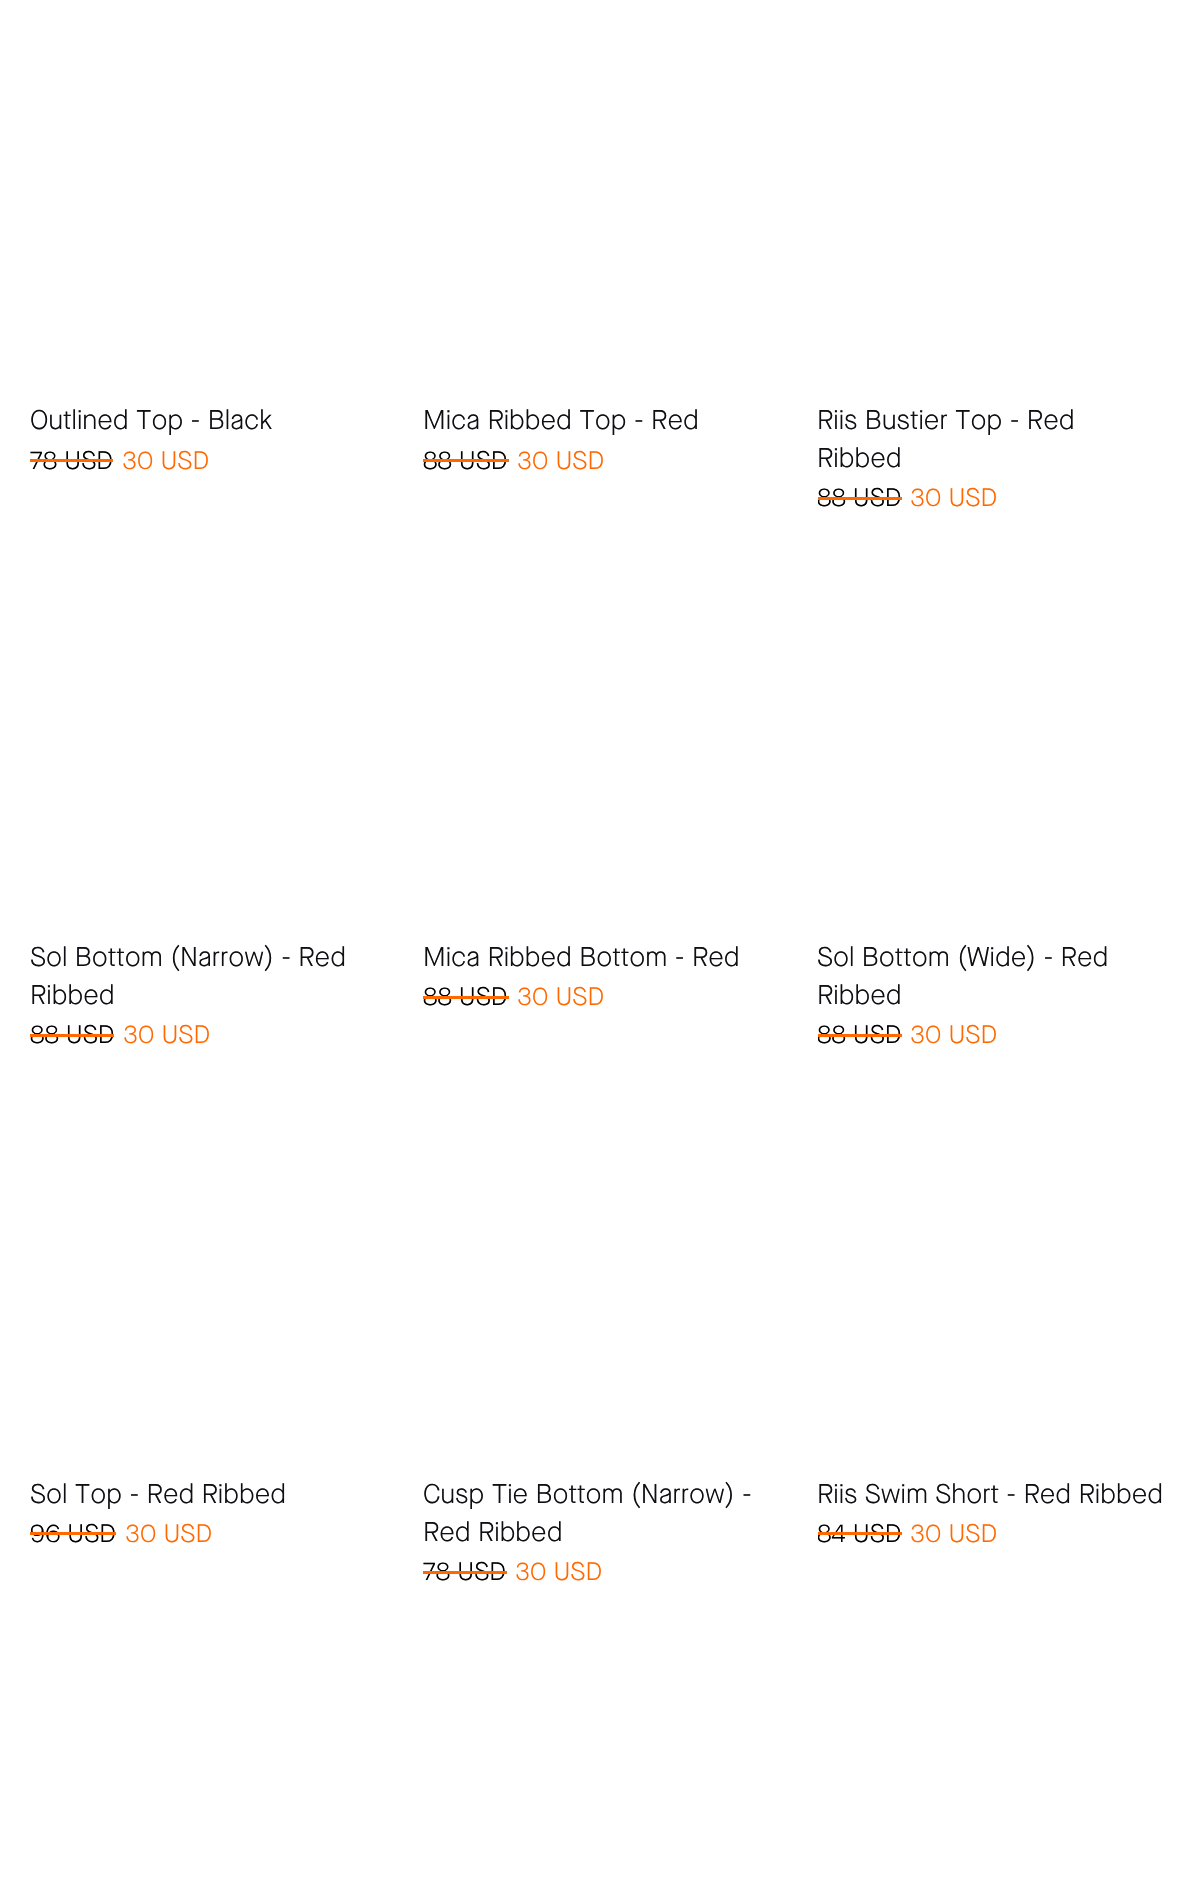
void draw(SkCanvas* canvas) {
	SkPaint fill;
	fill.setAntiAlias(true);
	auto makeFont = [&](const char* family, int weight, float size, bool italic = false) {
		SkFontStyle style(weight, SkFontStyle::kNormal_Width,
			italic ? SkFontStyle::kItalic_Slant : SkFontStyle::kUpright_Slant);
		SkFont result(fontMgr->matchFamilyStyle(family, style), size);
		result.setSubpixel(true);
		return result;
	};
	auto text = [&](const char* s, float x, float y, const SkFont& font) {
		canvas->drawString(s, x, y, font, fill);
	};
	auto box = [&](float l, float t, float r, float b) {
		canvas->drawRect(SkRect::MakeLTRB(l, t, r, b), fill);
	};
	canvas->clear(0xFFFFFFFF);
	auto font1 = makeFont("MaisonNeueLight", 300, 27);
	fill.setColor(0xFF0F0F13);
	text("Outlined Top - Black", 30, 429, font1);
	auto font2 = makeFont("MaisonNeueLight", 300, 25.5f);
	fill.setColor(0xFF000000);
	text("78 USD", 30, 469, font2);
	fill.setColor(0xFFFF6900);
	box(30, 459, 113, 462);
	text("30 USD", 122, 469, font2);
	fill.setColor(0xFF0F0F13);
	text("Mica Ribbed Top - Red", 423, 429, font1);
	fill.setColor(0xFF000000);
	text("88 USD", 423, 469, font2);
	fill.setColor(0xFFFF6900);
	box(423, 459, 509, 462);
	text("30 USD", 517, 469, font2);
	fill.setColor(0xFF0F0F13);
	text("Riis Bustier Top - Red", 817, 429, font1);
	text("Ribbed", 817, 467, font1);
	canvas->save();
	canvas->clipRect(SkRect::MakeLTRB(818, 479, 902, 519));
	fill.setColor(0xFF000000);
	text("88 USD", 817, 506, font2);
	canvas->restore();
	fill.setColor(0xFFFF6900);
	box(818, 497, 902, 500);
	text("30 USD", 910, 506, font2);
	fill.setColor(0xFF0F0F13);
	text("Sol Bottom (Narrow) - Red", 30, 966, font1);
	text("Ribbed", 30, 1004, font1);
	fill.setColor(0xFF000000);
	text("88 USD", 30, 1043, font2);
	fill.setColor(0xFFFF6900);
	box(30, 1034, 114, 1037);
	text("30 USD", 123, 1043, font2);
	fill.setColor(0xFF0F0F13);
	text("Mica Ribbed Bottom - Red", 423, 966, font1);
	fill.setColor(0xFF000000);
	text("88 USD", 423, 1005, font2);
	fill.setColor(0xFFFF6900);
	box(423, 996, 509, 999);
	text("30 USD", 517, 1005, font2);
	fill.setColor(0xFF0F0F13);
	text("Sol Bottom (Wide) - Red", 817, 966, font1);
	text("Ribbed", 817, 1004, font1);
	canvas->save();
	canvas->clipRect(SkRect::MakeLTRB(818, 1016, 902, 1056));
	fill.setColor(0xFF000000);
	text("88 USD", 817, 1043, font2);
	canvas->restore();
	fill.setColor(0xFFFF6900);
	box(818, 1034, 902, 1037);
	text("30 USD", 910, 1043, font2);
	fill.setColor(0xFF0F0F13);
	text("Sol Top - Red Ribbed", 30, 1503, font1);
	fill.setColor(0xFF000000);
	text("96 USD", 30, 1542, font2);
	fill.setColor(0xFFFF6900);
	box(30, 1532, 116, 1535);
	text("30 USD", 125, 1542, font2);
	fill.setColor(0xFF0F0F13);
	text("Cusp Tie Bottom (Narrow) -", 423, 1503, font1);
	text("Red Ribbed", 423, 1541, font1);
	fill.setColor(0xFF000000);
	text("78 USD", 423, 1580, font2);
	fill.setColor(0xFFFF6900);
	box(423, 1571, 507, 1574);
	text("30 USD", 515, 1580, font2);
	fill.setColor(0xFF0F0F13);
	text("Riis Swim Short - Red Ribbed", 817, 1503, font1);
	canvas->save();
	canvas->clipRect(SkRect::MakeLTRB(818, 1514, 902, 1554));
	fill.setColor(0xFF000000);
	text("84 USD", 817, 1542, font2);
	canvas->restore();
	fill.setColor(0xFFFF6900);
	box(818, 1532, 902, 1535);
	text("30 USD", 910, 1542, font2);
}
